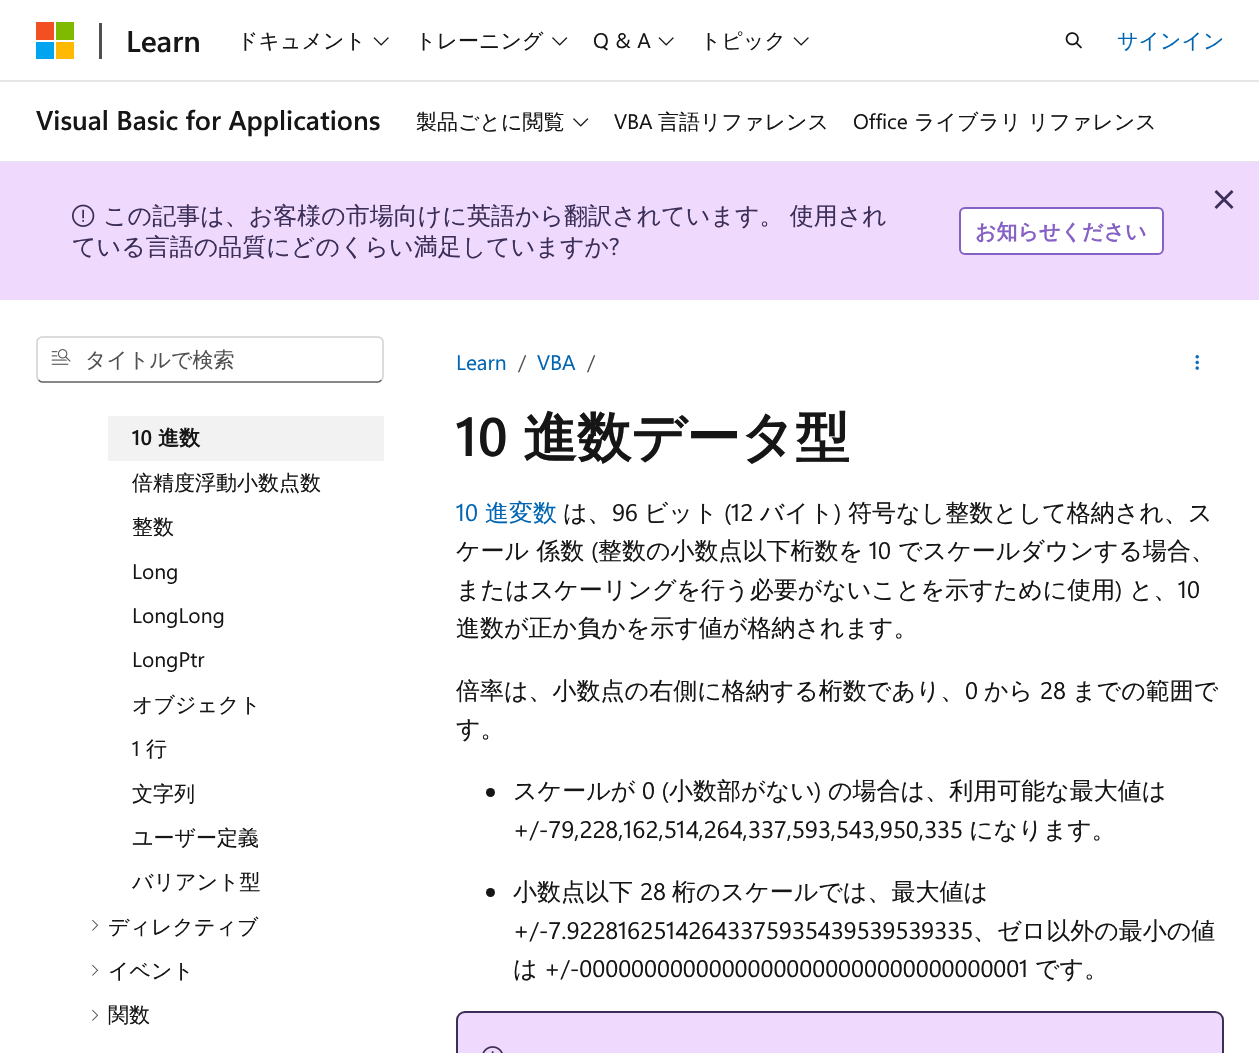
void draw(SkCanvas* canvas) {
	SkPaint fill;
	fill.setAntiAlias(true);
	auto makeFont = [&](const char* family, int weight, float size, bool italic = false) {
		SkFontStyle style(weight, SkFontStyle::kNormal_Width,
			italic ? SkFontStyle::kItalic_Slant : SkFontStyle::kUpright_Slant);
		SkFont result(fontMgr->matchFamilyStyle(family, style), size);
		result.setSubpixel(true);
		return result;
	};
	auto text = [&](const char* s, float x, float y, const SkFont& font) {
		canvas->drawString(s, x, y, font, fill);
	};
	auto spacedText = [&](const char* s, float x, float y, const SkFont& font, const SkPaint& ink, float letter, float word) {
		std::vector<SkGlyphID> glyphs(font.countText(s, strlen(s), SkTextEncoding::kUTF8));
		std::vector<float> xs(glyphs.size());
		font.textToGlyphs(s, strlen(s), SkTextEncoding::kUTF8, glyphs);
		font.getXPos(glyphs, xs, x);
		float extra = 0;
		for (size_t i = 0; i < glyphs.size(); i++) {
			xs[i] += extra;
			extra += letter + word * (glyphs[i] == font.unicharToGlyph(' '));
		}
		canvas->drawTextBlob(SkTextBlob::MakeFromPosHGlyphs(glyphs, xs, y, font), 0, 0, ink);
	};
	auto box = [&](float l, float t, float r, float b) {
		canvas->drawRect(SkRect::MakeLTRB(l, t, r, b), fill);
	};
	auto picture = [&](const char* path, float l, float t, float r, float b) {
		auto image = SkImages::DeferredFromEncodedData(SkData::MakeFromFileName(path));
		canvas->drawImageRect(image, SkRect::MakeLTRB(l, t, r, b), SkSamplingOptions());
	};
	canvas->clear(0xFFFFFFFF);
	fill.setColor(0xFFE6E6E6);
	box(0, 80, 1259, 82);
	fill.setColor(0xFFF25022);
	box(36, 22, 54, 40);
	fill.setColor(0xFF7FBA00);
	box(56, 22, 74, 40);
	fill.setColor(0xFF00A4EF);
	box(36, 42, 54, 59);
	fill.setColor(0xFFFFB900);
	box(56, 42, 74, 59);
	fill.setColor(0xFF505050);
	box(99, 23, 102, 59);
	picture("image0.png", 373, 37, 389, 46);
	picture("image1.png", 552, 37, 568, 46);
	picture("image0.png", 658, 37, 674, 46);
	picture("image0.png", 793, 37, 809, 46);
	picture("image2.png", 1065, 32, 1082, 49);
	fill.setColor(0xFFE6E6E6);
	box(0, 161, 1259, 162);
	picture("image1.png", 573, 118, 589, 127);
	fill.setColor(0xFFEFD9FD);
	box(0, 162, 1259, 300);
	fill.setColor(0xFF3B2E58);
	canvas->drawPath(SkPathBuilder().moveTo(1216.5f, 190).lineTo(1233.5f, 207).lineTo(1231.5f, 209).lineTo(1214.5f, 192).close().detach(), fill);
	canvas->drawPath(SkPathBuilder().moveTo(1231.5f, 190).lineTo(1233.5f, 192).lineTo(1216.5f, 209).lineTo(1214.5f, 207).close().detach(), fill);
	picture("image3.png", 72, 204, 95, 227);
	fill.setColor(0xFFFFFFFF);
	canvas->drawRoundRect(SkRect::MakeLTRB(960, 208, 1163, 254), 5, 5, fill);
	fill.setStyle(SkPaint::kStroke_Style);
	fill.setStrokeWidth(2);
	fill.setColor(0xFF8661C5);
	canvas->drawRoundRect(SkRect::MakeLTRB(960, 208, 1163, 254), 5, 5, fill);
	fill.setStrokeWidth(1.5f);
	fill.setColor(0xFF616161);
	canvas->drawPath(SkPathBuilder().moveTo(381.5f, 380).cubicTo(380.5f, 381, 379.5f, 382, 378, 382).lineTo(42, 382).cubicTo(40.5f, 382, 39.5f, 381, 38.5f, 380).detach(), fill);
	fill.setColor(0xFFD1D1D1);
	canvas->drawPath(SkPathBuilder().moveTo(38.5f, 380).cubicTo(37.5f, 379, 37, 378, 37, 376.5f).lineTo(37, 342).cubicTo(37, 340.5f, 37.5f, 339.5f, 38.5f, 338.5f).cubicTo(39.5f, 337.5f, 40.5f, 337, 42, 337).lineTo(378, 337).cubicTo(379.5f, 337, 380.5f, 337.5f, 381.5f, 338.5f).cubicTo(382.5f, 339.5f, 383, 340.5f, 383, 342).lineTo(383, 376.5f).cubicTo(383, 378, 382.5f, 379, 381.5f, 380).detach(), fill);
	picture("image4.png", 51, 349, 71, 365);
	fill.setStyle(SkPaint::kFill_Style);
	fill.setColor(0xFFF2F2F2);
	box(108, 416, 384, 461);
	picture("image5.png", 92, 919, 99, 931);
	picture("image5.png", 92, 964, 99, 976);
	picture("image5.png", 92, 1009, 99, 1021);
	picture("image6.png", 1195, 355, 1199, 370);
	fill.setColor(0xFF161616);
	canvas->drawCircle(490.5f, 792.5f, 4.5f, fill);
	canvas->drawCircle(490.5f, 892.5f, 4.5f, fill);
	fill.setColor(0xFFEFD9FD);
	canvas->drawRoundRect(SkRect::MakeLTRB(457, 1012, 1223, 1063), 8, 8, fill);
	fill.setStyle(SkPaint::kStroke_Style);
	fill.setStrokeWidth(2);
	fill.setColor(0xFF3B2E58);
	canvas->drawRoundRect(SkRect::MakeLTRB(457, 1012, 1223, 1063), 8, 8, fill);
	picture("image7.png", 482, 1046, 503, 1053);
	auto font1 = makeFont("Segoe UI", 600, 30);
	fill.setStyle(SkPaint::kFill_Style);
	fill.setColor(0xFF161616);
	text("Learn", 126, 52, font1);
	auto font2 = makeFont("WenQuanYi Zen Hei", 500, 21);
	text("ドキュメント", 237, 48, font2);
	text("トレーニング", 415, 48, font2);
	auto font3 = makeFont("Segoe UI", 400, 21);
	text("Q & A", 593, 48, font3);
	text("トピック", 700, 48, font2);
	fill.setColor(0xFF0065B3);
	text("サインイン", 1117, 48, font2);
	auto font4 = makeFont("Segoe UI", 600, 27);
	fill.setColor(0xFF161616);
	text("Visual Basic for Applications", 36, 130, font4);
	text("製品ごとに閲覧", 416, 129, font2);
	text("VBA", 614, 129, font3);
	text("言語リファレンス", 658, 129, font2);
	text("Office", 853, 129, font3);
	text("ライブラリ リファレンス", 914, 129, font2);
	auto font5 = makeFont("WenQuanYi Zen Hei", 500, 24);
	fill.setColor(0xFF3B2E58);
	spacedText("この記事は、お客様の市場向けに英語から翻訳されています。 使用され", 103, 224, font5, fill, 0, -1);
	text("ている言語の品質にどのくらい満足していますか", 72, 255, font5);
	auto font6 = makeFont("Segoe UI", 400, 24);
	text("?", 609, 255, font6);
	auto font7 = makeFont("WenQuanYi Zen Hei", 700, 21);
	fill.setColor(0xFF8661C5);
	text("お知らせください", 975, 239, font7);
	fill.setColor(0xFF505050);
	text("タイトルで検索", 85, 367, font2);
	auto font8 = makeFont("Segoe UI", 600, 21);
	fill.setColor(0xFF161616);
	text("10", 132, 445, font8);
	text("進数", 158, 445, font7);
	text("倍精度浮動小数点数", 132, 490, font2);
	text("整数", 132, 534, font2);
	text("Long", 132, 579, font3);
	text("LongLong", 132, 623, font3);
	text("LongPtr", 132, 667, font3);
	text("オブジェクト", 132, 712, font2);
	text("1", 132, 756, font3);
	text("行", 146, 756, font2);
	text("文字列", 132, 801, font2);
	text("ユーザー定義", 132, 845, font2);
	text("バリアント型", 132, 889, font2);
	text("ディレクティブ", 108, 934, font2);
	text("イベント", 108, 978, font2);
	text("関数", 108, 1022, font2);
	fill.setColor(0xFF0065B3);
	text("Learn", 456, 370, font3);
	fill.setColor(0xFF505050);
	text("/", 518, 370, font3);
	fill.setColor(0xFF0065B3);
	text("VBA", 537, 370, font3);
	fill.setColor(0xFF505050);
	text("/", 587, 370, font3);
	auto font9 = makeFont("Segoe UI", 600, 54);
	fill.setColor(0xFF161616);
	text("10", 456, 456, font9);
	auto font10 = makeFont("WenQuanYi Zen Hei", 700, 54);
	text("進数データ型", 523, 456, font10);
	fill.setColor(0xFF0065B3);
	text("10", 456, 521, font6);
	text("進変数", 485, 521, font5);
	fill.setColor(0xFF161616);
	text("は、", 563, 521, font5);
	text("96", 612, 521, font6);
	text("ビット", 644, 521, font5);
	text("(12", 724, 521, font6);
	text("バイト", 760, 521, font5);
	text(")", 834, 521, font6);
	text("符号なし整数として格納され、ス", 848, 521, font5);
	text("ケール 係数", 456, 559, font5);
	text("(", 591, 559, font6);
	text("整数の小数点以下桁数を", 598, 559, font5);
	text("10", 869, 559, font6);
	text("でスケールダウンする場合、", 898, 559, font5);
	text("またはスケーリングを行う必要がないことを示すために使用", 456, 598, font5);
	text(")", 1115, 598, font6);
	text("と、", 1129, 598, font5);
	text("10", 1178, 598, font6);
	text("進数が正か負かを示す値が格納されます。", 456, 636, font5);
	text("倍率は、小数点の右側に格納する桁数であり、", 456, 699, font5);
	text("0", 965, 699, font6);
	text("から", 984, 699, font5);
	text("28", 1040, 699, font6);
	text("までの範囲で", 1072, 699, font5);
	text("す。", 456, 737, font5);
	text("スケールが", 513, 799, font5);
	text("0 (", 642, 799, font6);
	text("小数部がない", 669, 799, font5);
	text(")", 814, 799, font6);
	text("の場合は、利用可能な最大値は", 828, 799, font5);
	text("+/-79,228,162,514,264,337,593,543,950,335", 513, 838, font6);
	text("になります。", 969, 838, font5);
	text("小数点以下", 513, 900, font5);
	text("28", 640, 900, font6);
	text("桁のスケールでは、最大値は", 672, 900, font5);
	text("+/-7.92281625142643375935439539539335", 513, 939, font6);
	text("、ゼロ以外の最小の値", 973, 939, font5);
	text("は", 513, 977, font5);
	text("+/-00000000000000000000000000000000001", 544, 977, font6);
	text("です。", 1035, 977, font5);
}
